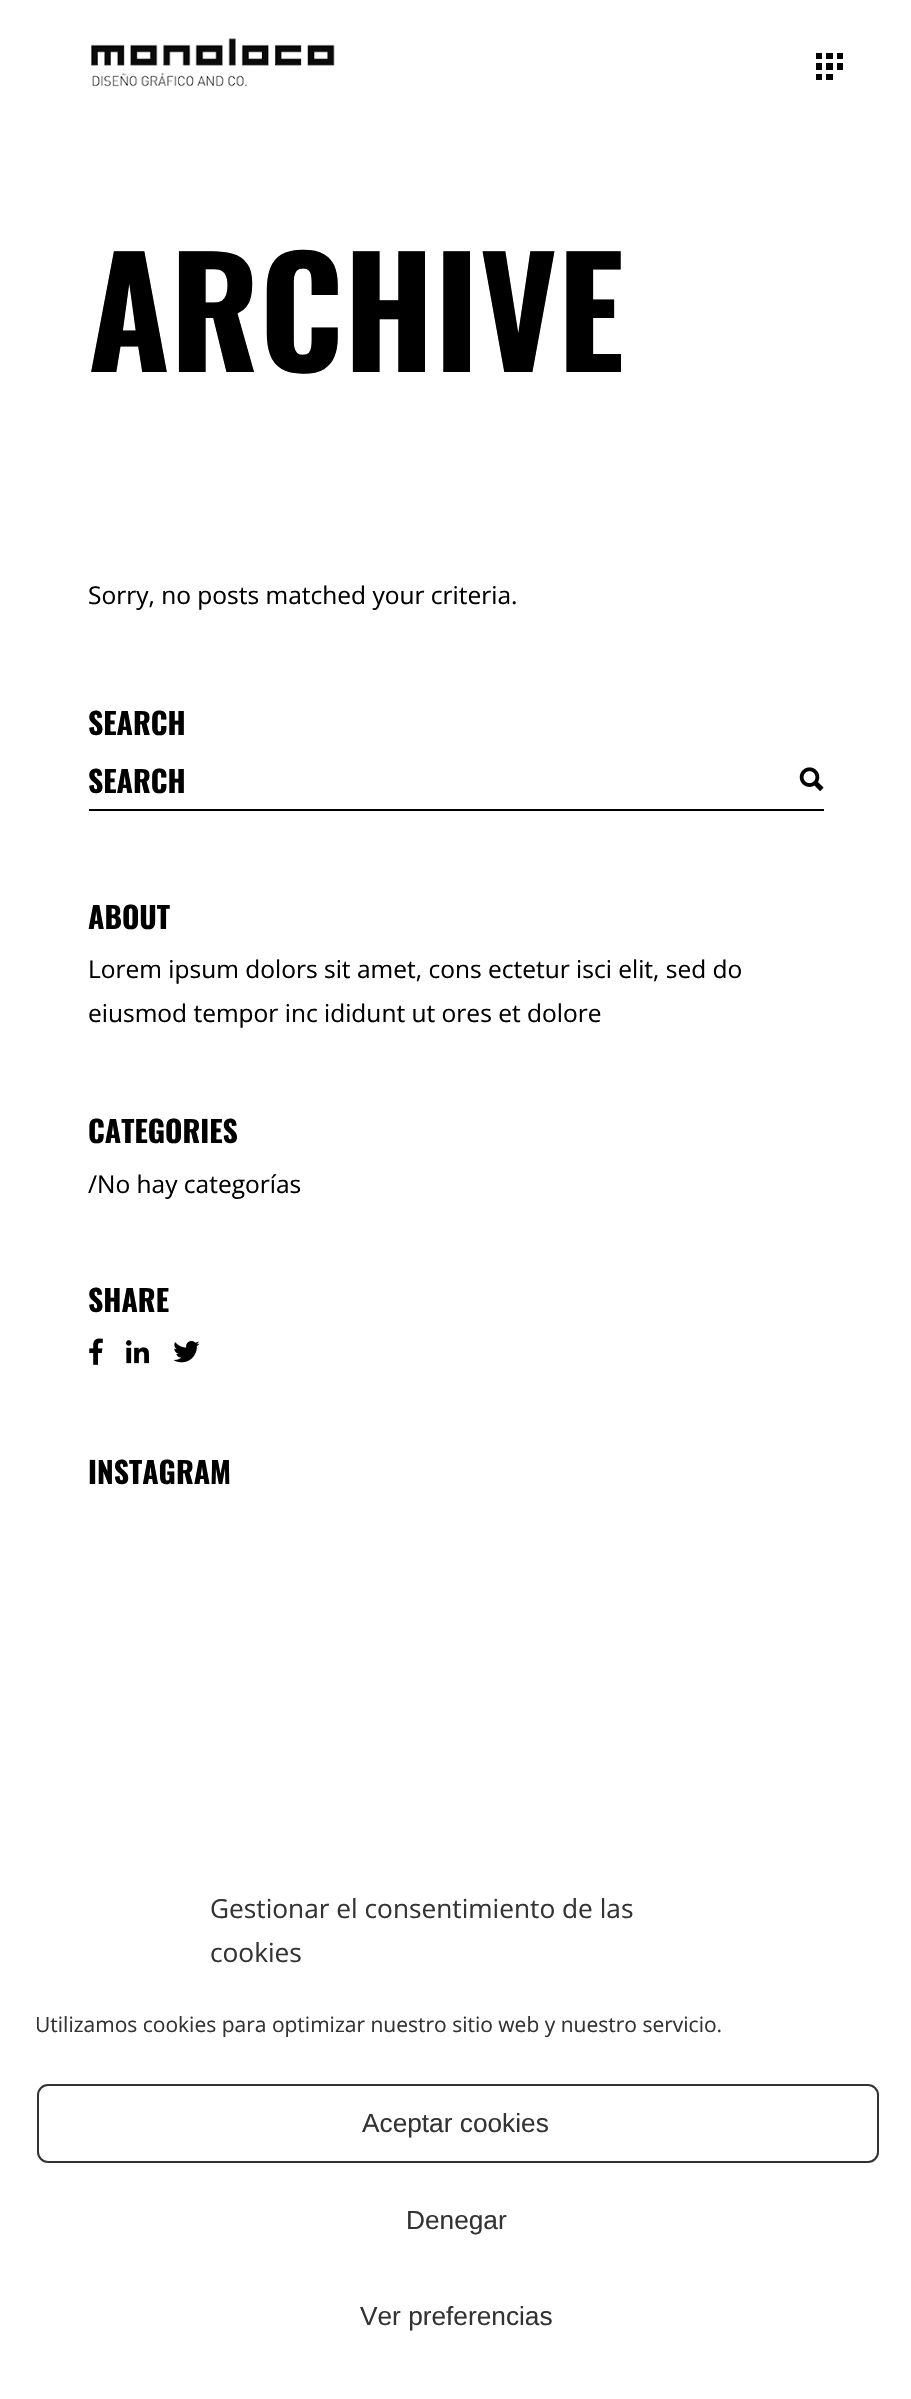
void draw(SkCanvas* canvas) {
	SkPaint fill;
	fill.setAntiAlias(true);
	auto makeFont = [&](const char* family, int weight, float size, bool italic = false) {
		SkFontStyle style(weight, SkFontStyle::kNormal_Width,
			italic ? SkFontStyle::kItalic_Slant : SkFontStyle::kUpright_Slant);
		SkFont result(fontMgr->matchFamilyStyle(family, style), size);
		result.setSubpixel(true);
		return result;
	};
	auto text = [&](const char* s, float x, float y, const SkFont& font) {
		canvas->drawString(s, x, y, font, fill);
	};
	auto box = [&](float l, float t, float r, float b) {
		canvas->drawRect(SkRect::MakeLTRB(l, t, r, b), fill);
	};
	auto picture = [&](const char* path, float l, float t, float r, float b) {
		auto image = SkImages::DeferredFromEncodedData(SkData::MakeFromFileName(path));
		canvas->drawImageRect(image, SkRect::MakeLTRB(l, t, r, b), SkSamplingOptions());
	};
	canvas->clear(0xFFFFFFFF);
	picture("image0.png", 91, 38, 335, 87);
	picture("image1.png", 816, 53, 843, 80);
	fill.setColor(0xFF000000);
	box(89, 809, 824, 811);
	picture("image2.png", 799, 767, 824, 791);
	picture("image3.png", 89, 1338, 103, 1365);
	picture("image4.png", 126, 1340, 149, 1364);
	picture("image5.png", 173, 1341, 200, 1363);
	fill.setStyle(SkPaint::kStroke_Style);
	fill.setStrokeWidth(2);
	fill.setColor(0xFF333333);
	canvas->drawRoundRect(SkRect::MakeLTRB(38, 2085, 878, 2162), 10, 10, fill);
	auto font1 = makeFont("Oswald", 700, 149);
	fill.setStyle(SkPaint::kFill_Style);
	fill.setColor(0xFF000000);
	text("ARCHIVE", 88, 372, font1);
	auto font2 = makeFont("Open Sans", 400, 24.5f);
	text("Sorry, no posts matched your criteria.", 88, 604, font2);
	auto font3 = makeFont("Oswald", 700, 29.75f);
	text("SEARCH", 88, 735, font3);
	text("SEARCH", 88, 793, font3);
	text("ABOUT", 88, 929, font3);
	text("Lorem ipsum dolors sit amet, cons ectetur isci elit, sed do", 88, 978, font2);
	text("eiusmod tempor inc ididunt ut ores et dolore", 88, 1022, font2);
	text("CATEGORIES", 88, 1143, font3);
	text("/No hay categorías", 88, 1193, font2);
	text("SHARE", 88, 1312, font3);
	text("INSTAGRAM", 88, 1484, font3);
	auto font4 = makeFont("Open Sans", 400, 26.25f);
	fill.setColor(0xFF333333);
	text("Gestionar el consentimiento de las", 210, 1918, font4);
	text("cookies", 210, 1962, font4);
	canvas->save();
	canvas->clipRect(SkRect::MakeLTRB(37, 2009, 879, 2049));
	auto font5 = makeFont("Open Sans", 400, 21);
	text("Utilizamos cookies para optimizar nuestro sitio web y nuestro servicio.", 35, 2032, font5);
	canvas->restore();
	auto font6 = makeFont("Liberation Sans", 400, 26.25f);
	text("Aceptar cookies", 362, 2132, font6);
	text("Denegar", 406, 2229, font6);
	text("Ver preferencias", 360, 2325, font6);
}
